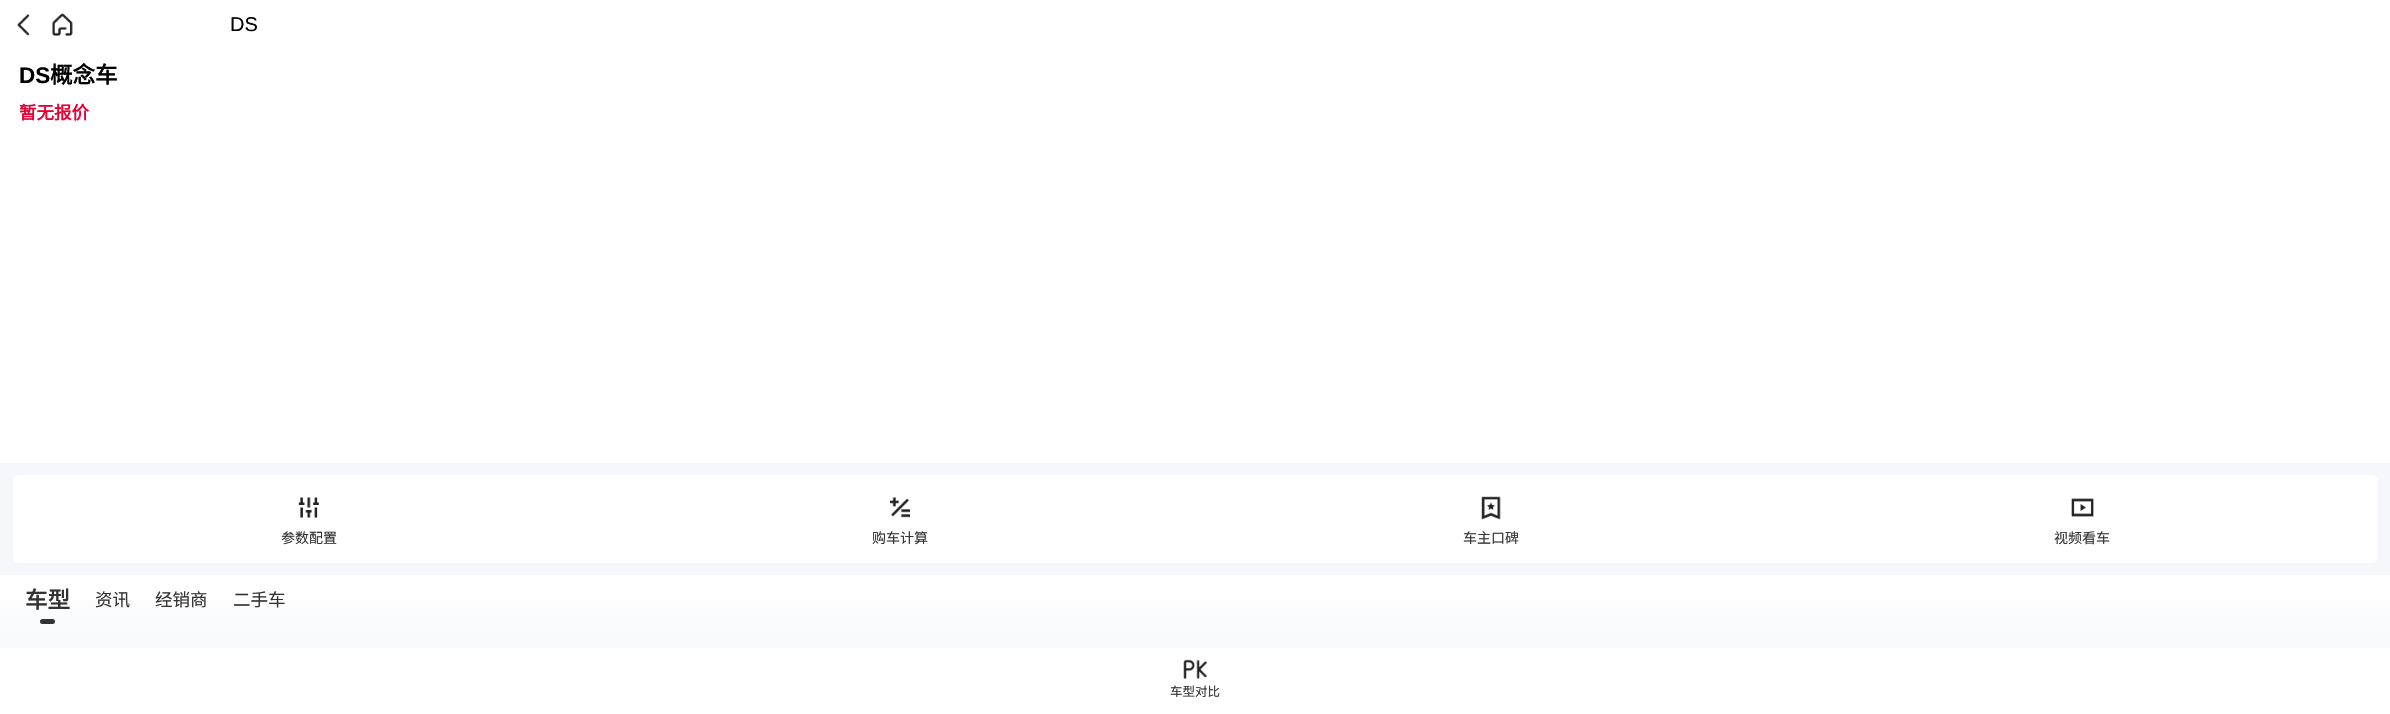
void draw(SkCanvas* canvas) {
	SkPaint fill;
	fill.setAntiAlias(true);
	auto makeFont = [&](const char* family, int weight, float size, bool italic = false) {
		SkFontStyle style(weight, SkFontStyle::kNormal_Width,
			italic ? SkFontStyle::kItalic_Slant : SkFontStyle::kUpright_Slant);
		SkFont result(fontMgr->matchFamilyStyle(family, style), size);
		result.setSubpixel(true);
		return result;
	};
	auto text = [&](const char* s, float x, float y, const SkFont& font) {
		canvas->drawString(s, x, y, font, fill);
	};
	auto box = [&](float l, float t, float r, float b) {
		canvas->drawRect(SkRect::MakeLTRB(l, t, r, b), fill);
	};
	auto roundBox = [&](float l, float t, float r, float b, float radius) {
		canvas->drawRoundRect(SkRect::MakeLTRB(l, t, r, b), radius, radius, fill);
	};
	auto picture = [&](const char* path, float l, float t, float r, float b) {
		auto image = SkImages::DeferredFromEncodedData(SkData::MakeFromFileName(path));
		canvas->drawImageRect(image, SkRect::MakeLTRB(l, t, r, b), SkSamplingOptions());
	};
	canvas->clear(0xFFFFFFFF);
	picture("image0.png", 17, 14, 30, 36);
	picture("image1.png", 52, 13, 73, 36);
	fill.setColor(0xFFF5F7FA);
	box(0, 463, 2390, 575);
	fill.setColor(0xFFFFFFFF);
	roundBox(13, 475, 2378, 563, 6);
	picture("image2.png", 298, 497, 319, 518);
	picture("image3.png", 890, 497, 910, 518);
	picture("image4.png", 1481, 496, 1501, 520);
	picture("image5.png", 2071, 498, 2094, 517);
	{
		const SkColor colors[] = {0xFFFFFFFF, 0xFFF5F7FA};
		const float stops[] = {0, 1};
		const SkPoint ends[] = {{1195, 575}, {1195, 673}};
		fill.setShader(SkGradientShader::MakeLinear(ends, colors, stops, 2, SkTileMode::kClamp));
		fill.setAlpha(255);
	}
	box(0, 600, 2390, 648);
	fill.setShader(nullptr);
	fill.setColor(0xFF333333);
	roundBox(40, 619, 55, 624, 2.5f);
	picture("image6.png", 1183, 659, 1207, 679);
	auto font1 = makeFont("Liberation Sans", 400, 20);
	fill.setColor(0xFF000000);
	text("DS", 230, 31, font1);
	auto font2 = makeFont("Liberation Sans", 700, 22.5f);
	text("DS", 19, 83, font2);
	auto font3 = makeFont("Noto Sans CJK SC", 700, 22.5f);
	text("概念车", 50, 83, font3);
	auto font4 = makeFont("Noto Sans CJK SC", 700, 17.5f);
	fill.setColor(0xFFE60036);
	text("暂无报价", 19, 119, font4);
	auto font5 = makeFont("Noto Sans CJK SC", 400, 14);
	fill.setColor(0xFF333333);
	text("参数配置", 281, 543, font5);
	text("购车计算", 872, 543, font5);
	text("车主口碑", 1463, 543, font5);
	text("视频看车", 2054, 543, font5);
	text("车型", 25, 608, font3);
	auto font6 = makeFont("Noto Sans CJK SC", 400, 17.5f);
	text("资讯", 95, 606, font6);
	text("经销商", 155, 606, font6);
	text("二手车", 233, 606, font6);
	auto font7 = makeFont("Noto Sans CJK SC", 400, 12.5f);
	text("车型对比", 1170, 696, font7);
}
